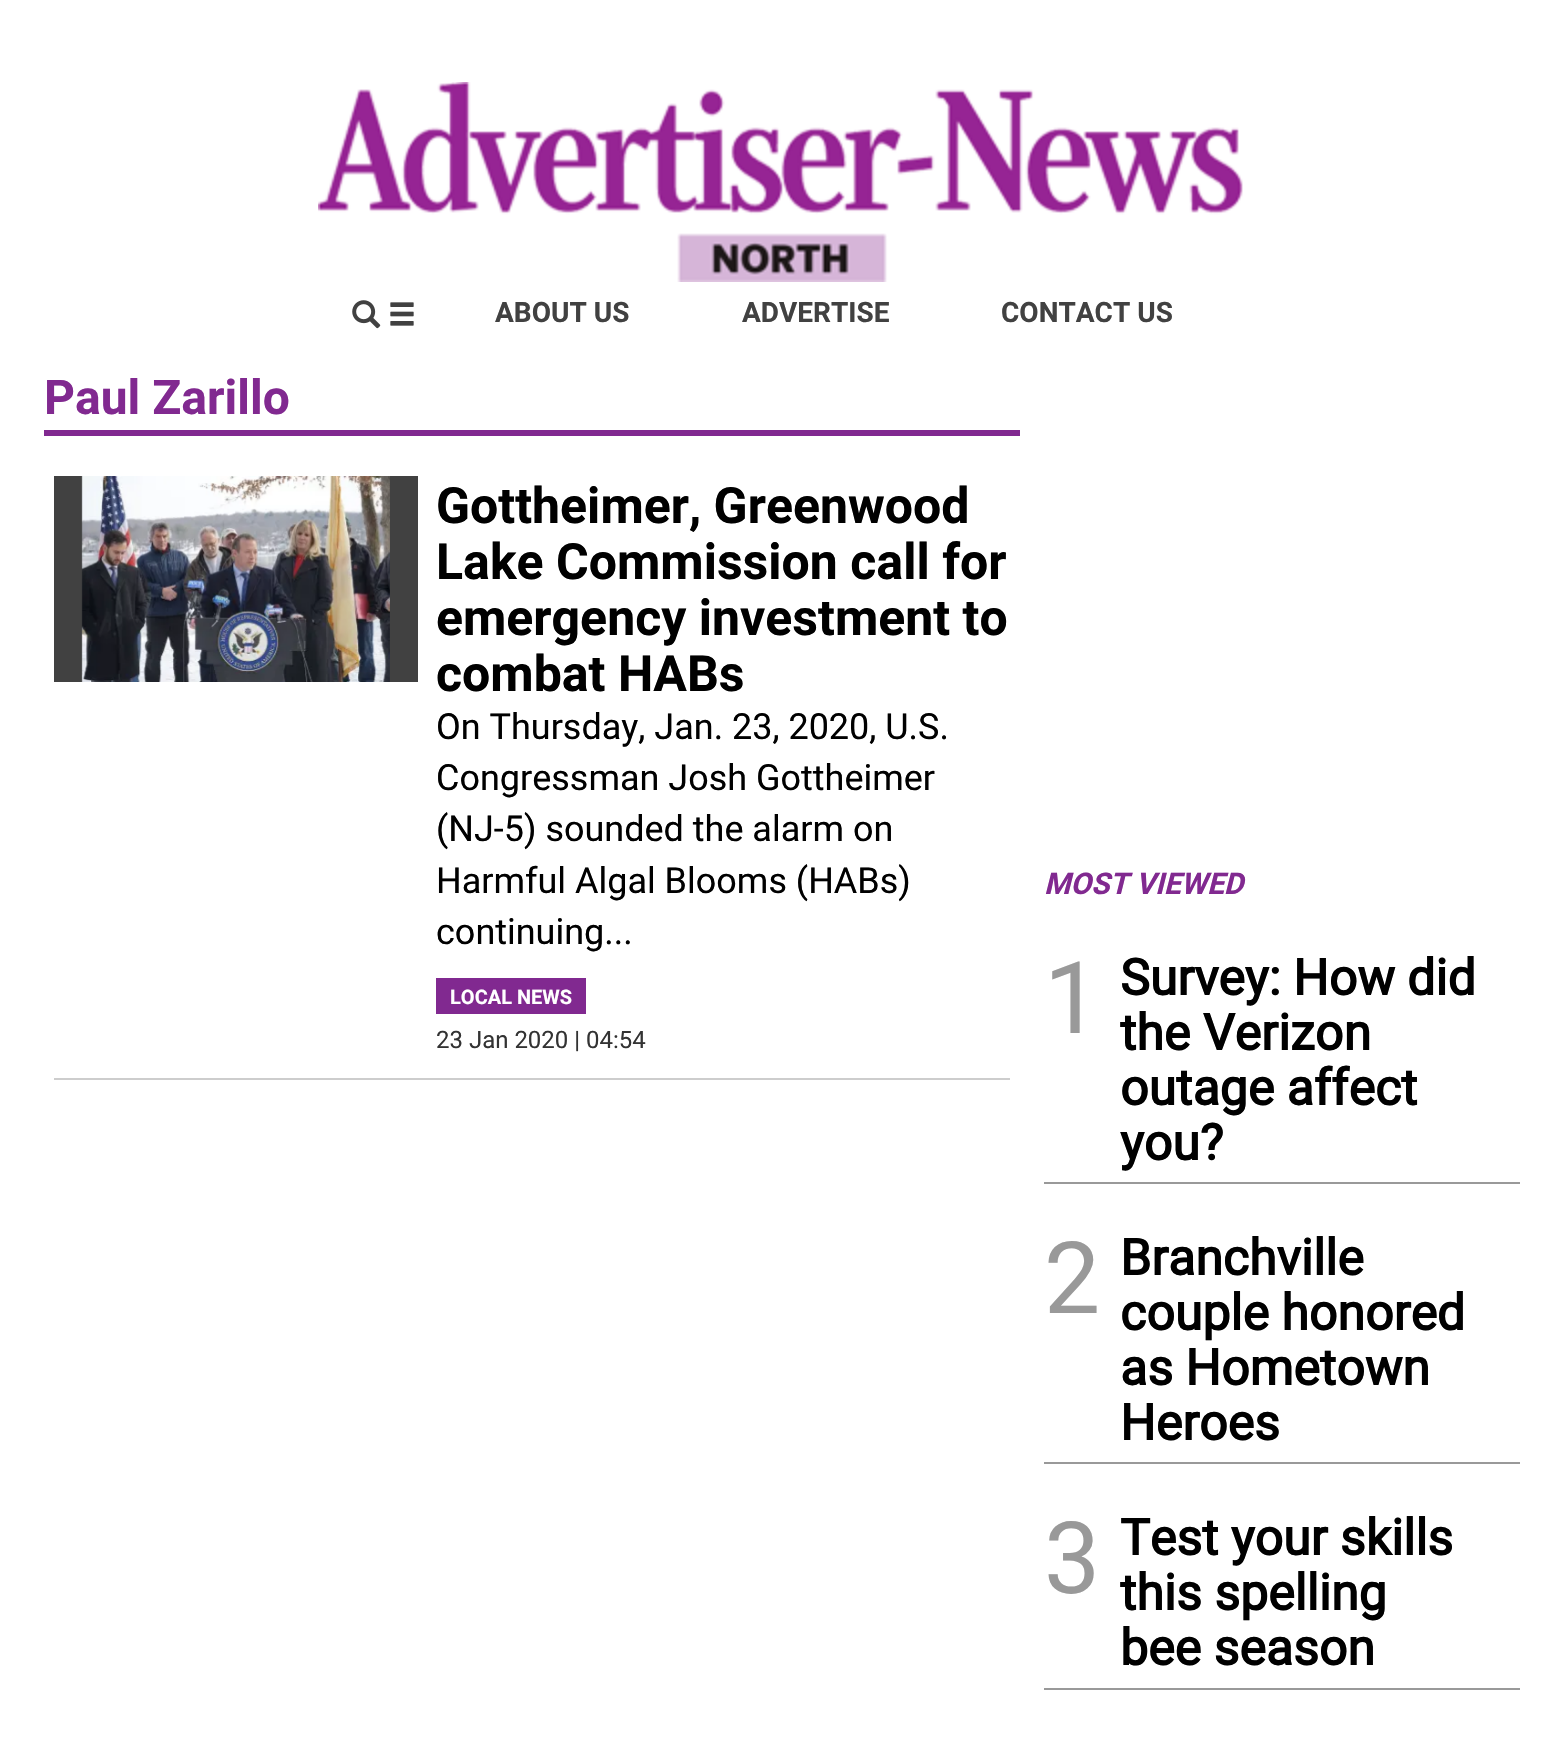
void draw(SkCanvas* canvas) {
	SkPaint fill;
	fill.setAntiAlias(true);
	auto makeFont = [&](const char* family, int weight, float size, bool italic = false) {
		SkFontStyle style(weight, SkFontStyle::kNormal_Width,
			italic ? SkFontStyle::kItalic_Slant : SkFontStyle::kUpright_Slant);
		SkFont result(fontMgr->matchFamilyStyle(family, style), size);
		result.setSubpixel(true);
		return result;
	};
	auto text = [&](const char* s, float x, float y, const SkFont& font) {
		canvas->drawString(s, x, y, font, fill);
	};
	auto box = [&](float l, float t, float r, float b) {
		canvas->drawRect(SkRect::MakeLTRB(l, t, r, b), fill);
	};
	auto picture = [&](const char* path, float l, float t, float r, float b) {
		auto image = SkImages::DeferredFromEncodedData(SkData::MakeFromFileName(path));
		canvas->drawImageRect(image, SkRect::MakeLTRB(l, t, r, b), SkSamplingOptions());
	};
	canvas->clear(0xFFFFFFFF);
	picture("image0.png", 318, 82, 1243, 282);
	picture("image1.png", 352, 300, 414, 329);
	fill.setColor(0xFF812990);
	box(44, 430, 1020, 436);
	fill.setColor(0xFFCDCDCD);
	box(54, 1078, 1010, 1080);
	fill.setColor(0xFF414141);
	box(54, 476, 418, 682);
	picture("image2.png", 81, 476, 390, 682);
	fill.setColor(0xFF812990);
	box(436, 978, 586, 1014);
	fill.setColor(0xFF999999);
	box(1044, 1182, 1520, 1184);
	box(1044, 1462, 1520, 1464);
	box(1044, 1688, 1520, 1690);
	auto font1 = makeFont("Roboto", 700, 28);
	fill.setColor(0xFF414141);
	text("ABOUT US", 495, 322, font1);
	text("ADVERTISE", 742, 322, font1);
	text("CONTACT US", 1001, 322, font1);
	auto font2 = makeFont("Roboto", 700, 48);
	fill.setColor(0xFF812990);
	text("Paul Zarillo", 44, 414, font2);
	auto font3 = makeFont("Roboto", 700, 50);
	fill.setColor(0xFF000000);
	text("Gottheimer, Greenwood", 436, 523, font3);
	text("Lake Commission call for", 436, 579, font3);
	text("emergency investment to", 436, 635, font3);
	text("combat HABs", 436, 691, font3);
	auto font4 = makeFont("Roboto", 400, 36);
	text("On Thursday, Jan. 23, 2020, U.S.", 436, 739, font4);
	text("Congressman Josh Gottheimer", 436, 790, font4);
	text("(NJ-5) sounded the alarm on", 436, 841, font4);
	text("Harmful Algal Blooms (HABs)", 436, 893, font4);
	text("continuing...", 436, 944, font4);
	auto font5 = makeFont("Roboto", 700, 20);
	fill.setColor(0xFFFFFFFF);
	text("LOCAL NEWS", 450, 1004, font5);
	auto font6 = makeFont("Roboto", 400, 24);
	fill.setColor(0xFF333333);
	text("23 Jan 2020 | 04:54", 436, 1048, font6);
	auto font7 = makeFont("Roboto", 700, 30, true);
	fill.setColor(0xFF812990);
	text("MOST VIEWED", 1044, 894, font7);
	auto font8 = makeFont("Roboto", 400, 100);
	fill.setColor(0xFF999999);
	text("1", 1044, 1033, font8);
	auto font9 = makeFont("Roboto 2", 700, 50);
	fill.setColor(0xFF000000);
	text("Survey: How did", 1120, 995, font9);
	text("the Verizon", 1120, 1050, font9);
	text("outage affect", 1120, 1105, font9);
	text("you?", 1120, 1160, font9);
	fill.setColor(0xFF999999);
	text("2", 1044, 1313, font8);
	fill.setColor(0xFF000000);
	text("Branchville", 1120, 1275, font9);
	text("couple honored", 1120, 1330, font9);
	text("as Hometown", 1120, 1385, font9);
	text("Heroes", 1120, 1440, font9);
	fill.setColor(0xFF999999);
	text("3", 1044, 1593, font8);
	fill.setColor(0xFF000000);
	text("Test your skills", 1120, 1555, font9);
	text("this spelling", 1120, 1610, font9);
	text("bee season", 1120, 1665, font9);
}
